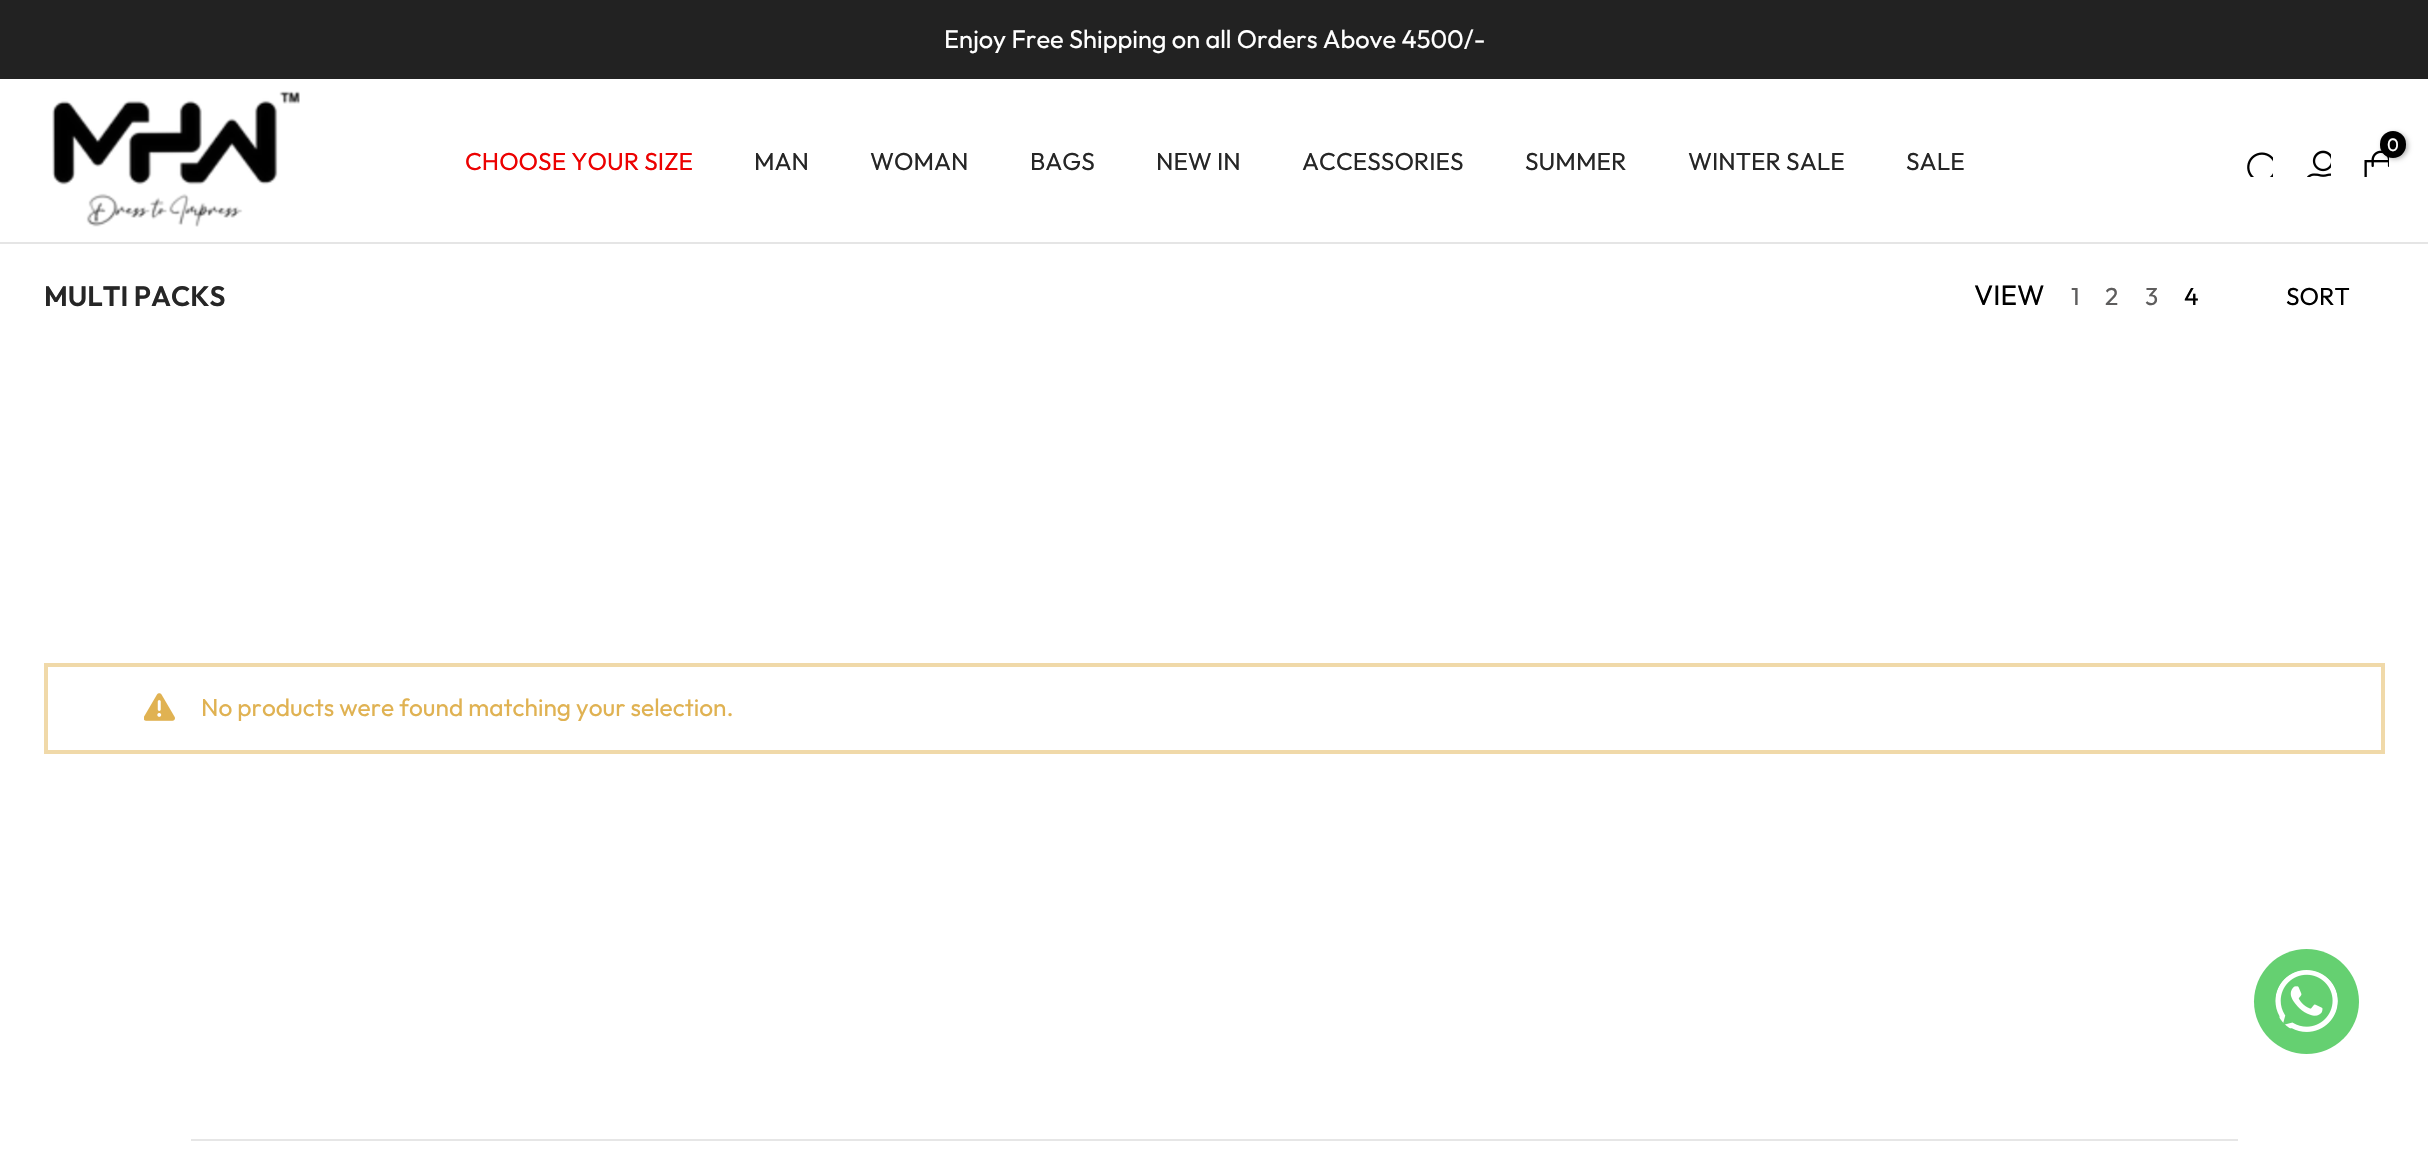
void draw(SkCanvas* canvas) {
	SkPaint fill;
	fill.setAntiAlias(true);
	auto makeFont = [&](const char* family, int weight, float size, bool italic = false) {
		SkFontStyle style(weight, SkFontStyle::kNormal_Width,
			italic ? SkFontStyle::kItalic_Slant : SkFontStyle::kUpright_Slant);
		SkFont result(fontMgr->matchFamilyStyle(family, style), size);
		result.setSubpixel(true);
		return result;
	};
	auto text = [&](const char* s, float x, float y, const SkFont& font) {
		canvas->drawString(s, x, y, font, fill);
	};
	auto box = [&](float l, float t, float r, float b) {
		canvas->drawRect(SkRect::MakeLTRB(l, t, r, b), fill);
	};
	auto roundBox = [&](float l, float t, float r, float b, float radius) {
		canvas->drawRoundRect(SkRect::MakeLTRB(l, t, r, b), radius, radius, fill);
	};
	auto picture = [&](const char* path, float l, float t, float r, float b) {
		auto image = SkImages::DeferredFromEncodedData(SkData::MakeFromFileName(path));
		canvas->drawImageRect(image, SkRect::MakeLTRB(l, t, r, b), SkSamplingOptions());
	};
	canvas->clear(0xFFFFFFFF);
	fill.setColor(0xFF222222);
	box(0, 0, 2428, 79);
	fill.setColor(0xFFE5E5E5);
	box(0, 242, 2428, 244);
	picture("image0.png", 52, 91, 300, 227);
	picture("image1.png", 2364, 150, 2389, 177);
	fill.setColor(0x4D000000);
	fill.setMaskFilter(SkMaskFilter::MakeBlur(kNormal_SkBlurStyle, 2.5f));
	canvas->drawRoundRect(SkRect::MakeLTRB(2382, 133, 2408, 159), 13, 13, fill);
	fill.setMaskFilter(nullptr);
	fill.setColor(0xFF000000);
	roundBox(2380, 131, 2406, 158, 13);
	picture("image2.png", 2247, 152, 2273, 177);
	picture("image3.png", 2307, 150, 2331, 177);
	fill.setStyle(SkPaint::kStroke_Style);
	fill.setStrokeWidth(4);
	fill.setColor(0xFFF0D9A9);
	canvas->drawRect(SkRect::MakeLTRB(46, 665, 2383, 752), fill);
	picture("image4.png", 144, 693, 175, 721);
	fill.setStyle(SkPaint::kFill_Style);
	fill.setColor(0xFFE6E6E6);
	box(191, 1139, 2238, 1141);
	fill.setColor(0xFF65D071);
	canvas->drawCircle(2306.5f, 1001.5f, 52.5f, fill);
	picture("image5.png", 2275, 970, 2338, 1032);
	auto font1 = makeFont("Outfit", 400, 25.4f);
	fill.setColor(0xFFFFFFFF);
	text("Enjoy Free Shipping on all Orders Above 4500/-", 944, 48, font1);
	auto font2 = makeFont("Outfit", 400, 18);
	text("0", 2387, 151, font2);
	auto font3 = makeFont("Outfit", 400, 24.5f);
	fill.setColor(0xFFEC0101);
	text("CHOOSE YOUR SIZE", 465, 170, font3);
	fill.setColor(0xFF262626);
	text("MAN", 754, 170, font3);
	text("WOMAN", 870, 170, font3);
	text("BAGS", 1030, 170, font3);
	text("NEW IN", 1156, 170, font3);
	text("ACCESSORIES", 1302, 170, font3);
	text("SUMMER", 1525, 170, font3);
	text("WINTER SALE", 1688, 170, font3);
	text("SALE", 1906, 170, font3);
	auto font4 = makeFont("Outfit", 600, 28);
	text("MULTI PACKS", 44, 306, font4);
	auto font5 = makeFont("Outfit", 400, 28);
	fill.setColor(0xFF000000);
	text("VIEW", 1974, 305, font5);
	fill.setColor(0xFF5E5D5D);
	text("1", 2071, 305, font3);
	text("2", 2105, 305, font3);
	text("3", 2145, 305, font3);
	fill.setColor(0xFF000000);
	text("4", 2184, 305, font3);
	text("SORT", 2286, 305, font3);
	fill.setColor(0xFFE0B252);
	text("No products were found matching your selection.", 201, 716, font3);
}
